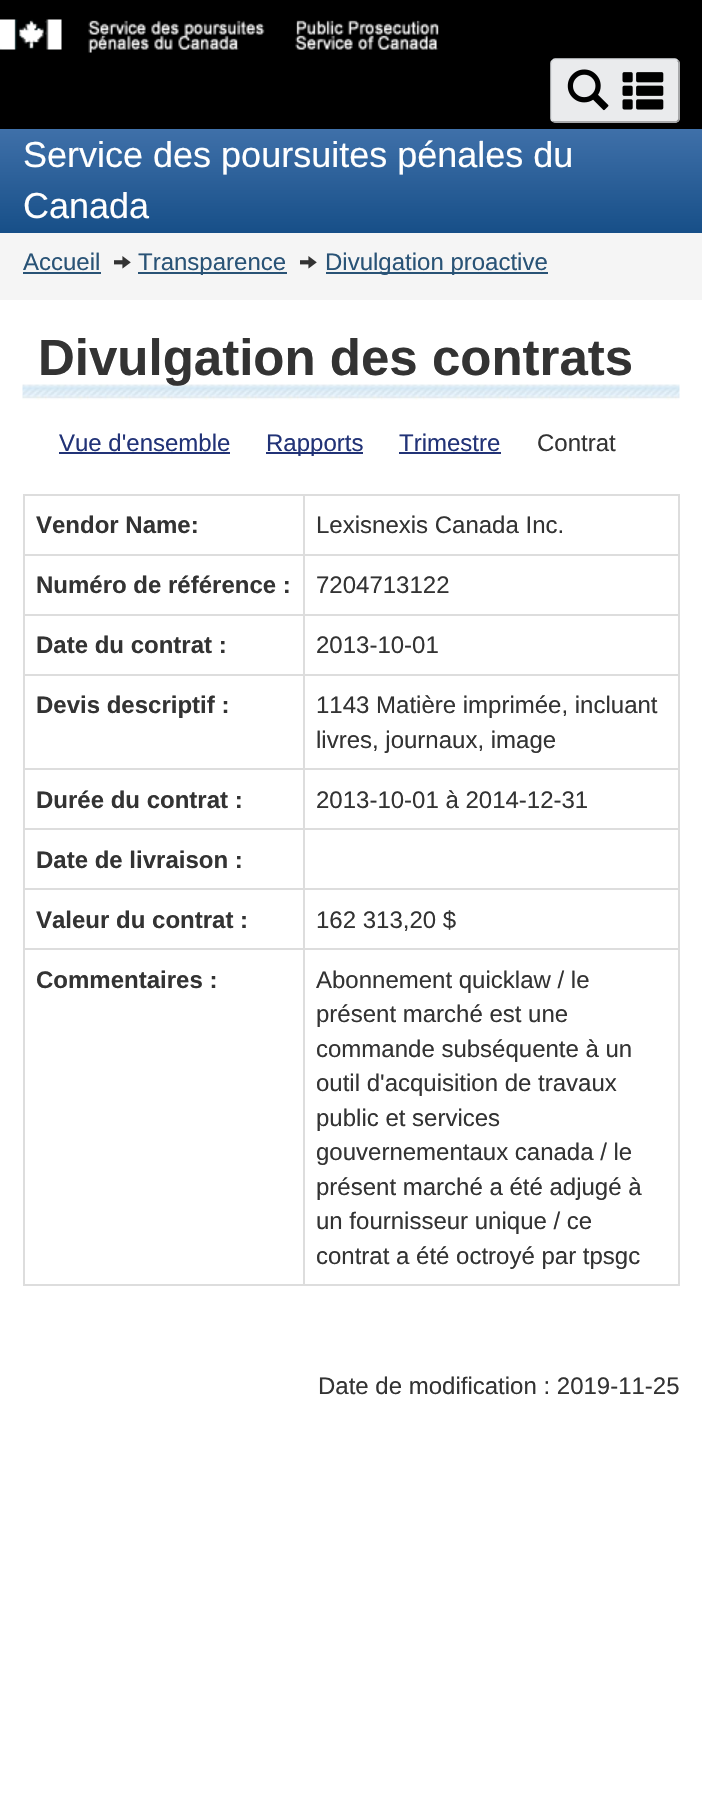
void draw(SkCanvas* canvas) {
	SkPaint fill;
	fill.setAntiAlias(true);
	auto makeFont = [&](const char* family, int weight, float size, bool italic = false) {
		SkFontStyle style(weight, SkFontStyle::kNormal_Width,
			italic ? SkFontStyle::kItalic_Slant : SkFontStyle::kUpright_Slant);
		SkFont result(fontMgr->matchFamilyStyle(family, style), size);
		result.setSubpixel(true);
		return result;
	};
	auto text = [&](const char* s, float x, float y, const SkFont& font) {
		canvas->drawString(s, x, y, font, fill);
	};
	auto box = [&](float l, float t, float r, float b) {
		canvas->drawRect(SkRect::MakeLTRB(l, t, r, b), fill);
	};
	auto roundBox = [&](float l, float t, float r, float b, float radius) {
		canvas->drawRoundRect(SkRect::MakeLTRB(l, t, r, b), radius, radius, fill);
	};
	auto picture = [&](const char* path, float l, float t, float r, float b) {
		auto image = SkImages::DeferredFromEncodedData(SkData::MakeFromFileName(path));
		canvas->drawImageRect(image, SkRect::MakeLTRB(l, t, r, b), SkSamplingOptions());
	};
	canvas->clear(0xFFFFFFFF);
	{
		const SkColor colors[] = {0xFF4474AD, 0xFF4474AD, 0xFF174F88};
		const float stops[] = {0, 0.5f, 1};
		const SkPoint ends[] = {{351, 0}, {351, 233}};
		fill.setShader(SkGradientShader::MakeLinear(ends, colors, stops, 3, SkTileMode::kClamp));
		fill.setAlpha(255);
	}
	box(0, 129, 702, 233);
	fill.setShader(nullptr);
	fill.setColor(0xFF000000);
	box(0, 0, 702, 129);
	picture("image0.png", 0, 19, 439, 53);
	fill.setColor(0xFFEAEBED);
	roundBox(551, 59, 680, 123, 5);
	fill.setStyle(SkPaint::kStroke_Style);
	fill.setStrokeWidth(1.5f);
	fill.setColor(0xFF939496);
	canvas->drawPath(SkPathBuilder().moveTo(677.5f, 60.5f).cubicTo(678.5f, 61, 679, 62, 679, 63).lineTo(679, 118.5f).cubicTo(679, 119.5f, 678.5f, 120.5f, 677.5f, 121).cubicTo(677, 122, 676, 122, 675, 122).lineTo(555, 122).cubicTo(554, 122, 553, 122, 552.5f, 121).detach(), fill);
	fill.setColor(0xFFDCDEE1);
	canvas->drawPath(SkPathBuilder().moveTo(552.5f, 121).cubicTo(551.5f, 120.5f, 551, 119.5f, 551, 118.5f).lineTo(551, 63).cubicTo(551, 62, 551.5f, 61, 552.5f, 60.5f).cubicTo(553, 59.5f, 554, 59, 555, 59).lineTo(675, 59).cubicTo(676, 59, 677, 59.5f, 677.5f, 60.5f).detach(), fill);
	picture("image1.png", 567, 69, 609, 111);
	picture("image2.png", 622, 72, 664, 110);
	fill.setStyle(SkPaint::kFill_Style);
	fill.setColor(0xFFF5F5F5);
	box(0, 233, 702, 300);
	fill.setColor(0xFF295376);
	box(23, 272, 101, 274);
	picture("image3.png", 114, 256, 131, 269);
	box(138, 272, 287, 274);
	picture("image3.png", 300, 256, 317, 269);
	box(326, 272, 548, 274);
	picture("image4.png", 22, 384, 680, 400);
	fill.setColor(0xFF223377);
	box(59, 452, 230, 454);
	box(266, 452, 363, 454);
	box(399, 452, 501, 454);
	fill.setColor(0xFFDDDDDD);
	box(23, 494, 680, 496);
	box(678, 494, 680, 1286);
	box(23, 1284, 680, 1286);
	box(23, 494, 25, 1286);
	box(303, 554, 680, 556);
	box(303, 614, 680, 616);
	box(303, 674, 680, 676);
	box(303, 768, 680, 770);
	box(303, 828, 680, 830);
	box(303, 888, 680, 890);
	box(303, 948, 680, 950);
	box(303, 948, 305, 1286);
	box(23, 948, 305, 950);
	box(303, 888, 305, 950);
	box(23, 888, 305, 890);
	box(303, 828, 305, 890);
	box(23, 828, 305, 830);
	box(303, 768, 305, 830);
	box(23, 768, 305, 770);
	box(303, 674, 305, 770);
	box(23, 674, 305, 676);
	box(303, 614, 305, 675);
	box(23, 614, 305, 616);
	box(303, 554, 305, 615);
	box(23, 554, 305, 556);
	box(303, 494, 305, 555);
	auto font1 = makeFont("Liberation Sans", 400, 36);
	fill.setColor(0xFFFFFFFF);
	text("Service des poursuites pénales du", 23, 167, font1);
	text("Canada", 23, 218, font1);
	auto font2 = makeFont("Liberation Sans", 400, 24);
	fill.setColor(0xFF295376);
	text("Accueil", 23, 270, font2);
	text("Transparence", 138, 270, font2);
	text("Divulgation proactive", 325, 270, font2);
	auto font3 = makeFont("Liberation Sans", 700, 51);
	fill.setColor(0xFF333333);
	text("Divulgation des contrats", 38, 375, font3);
	fill.setColor(0xFF223377);
	text("Vue d'ensemble", 59, 451, font2);
	text("Rapports", 266, 451, font2);
	text("Trimestre", 399, 451, font2);
	fill.setColor(0xFF333333);
	text("Contrat", 537, 451, font2);
	auto font4 = makeFont("Liberation Sans", 700, 24);
	text("Vendor Name:", 36, 533, font4);
	text("Lexisnexis Canada Inc.", 316, 533, font2);
	text("Numéro de référence :", 36, 593, font4);
	text("7204713122", 316, 593, font2);
	text("Date du contrat :", 36, 653, font4);
	text("2013-10-01", 316, 653, font2);
	text("Devis descriptif :", 36, 713, font4);
	text("1143 Matière imprimée, incluant", 316, 713, font2);
	text("livres, journaux, image", 316, 748, font2);
	text("Durée du contrat :", 36, 808, font4);
	text("2013-10-01 à 2014-12-31", 316, 808, font2);
	text("Date de livraison :", 36, 868, font4);
	text("Valeur du contrat :", 36, 928, font4);
	text("162 313,20 $", 316, 928, font2);
	text("Commentaires :", 36, 988, font4);
	text("Abonnement quicklaw / le", 316, 988, font2);
	text("présent marché est une", 316, 1022, font2);
	text("commande subséquente à un", 316, 1057, font2);
	text("outil d'acquisition de travaux", 316, 1091, font2);
	text("public et services", 316, 1126, font2);
	text("gouvernementaux canada / le", 316, 1160, font2);
	text("présent marché a été adjugé à", 316, 1195, font2);
	text("un fournisseur unique / ce", 316, 1229, font2);
	text("contrat a été octroyé par tpsgc", 316, 1264, font2);
	text("Date de modification : 2019-11-25", 318, 1394, font2);
}
